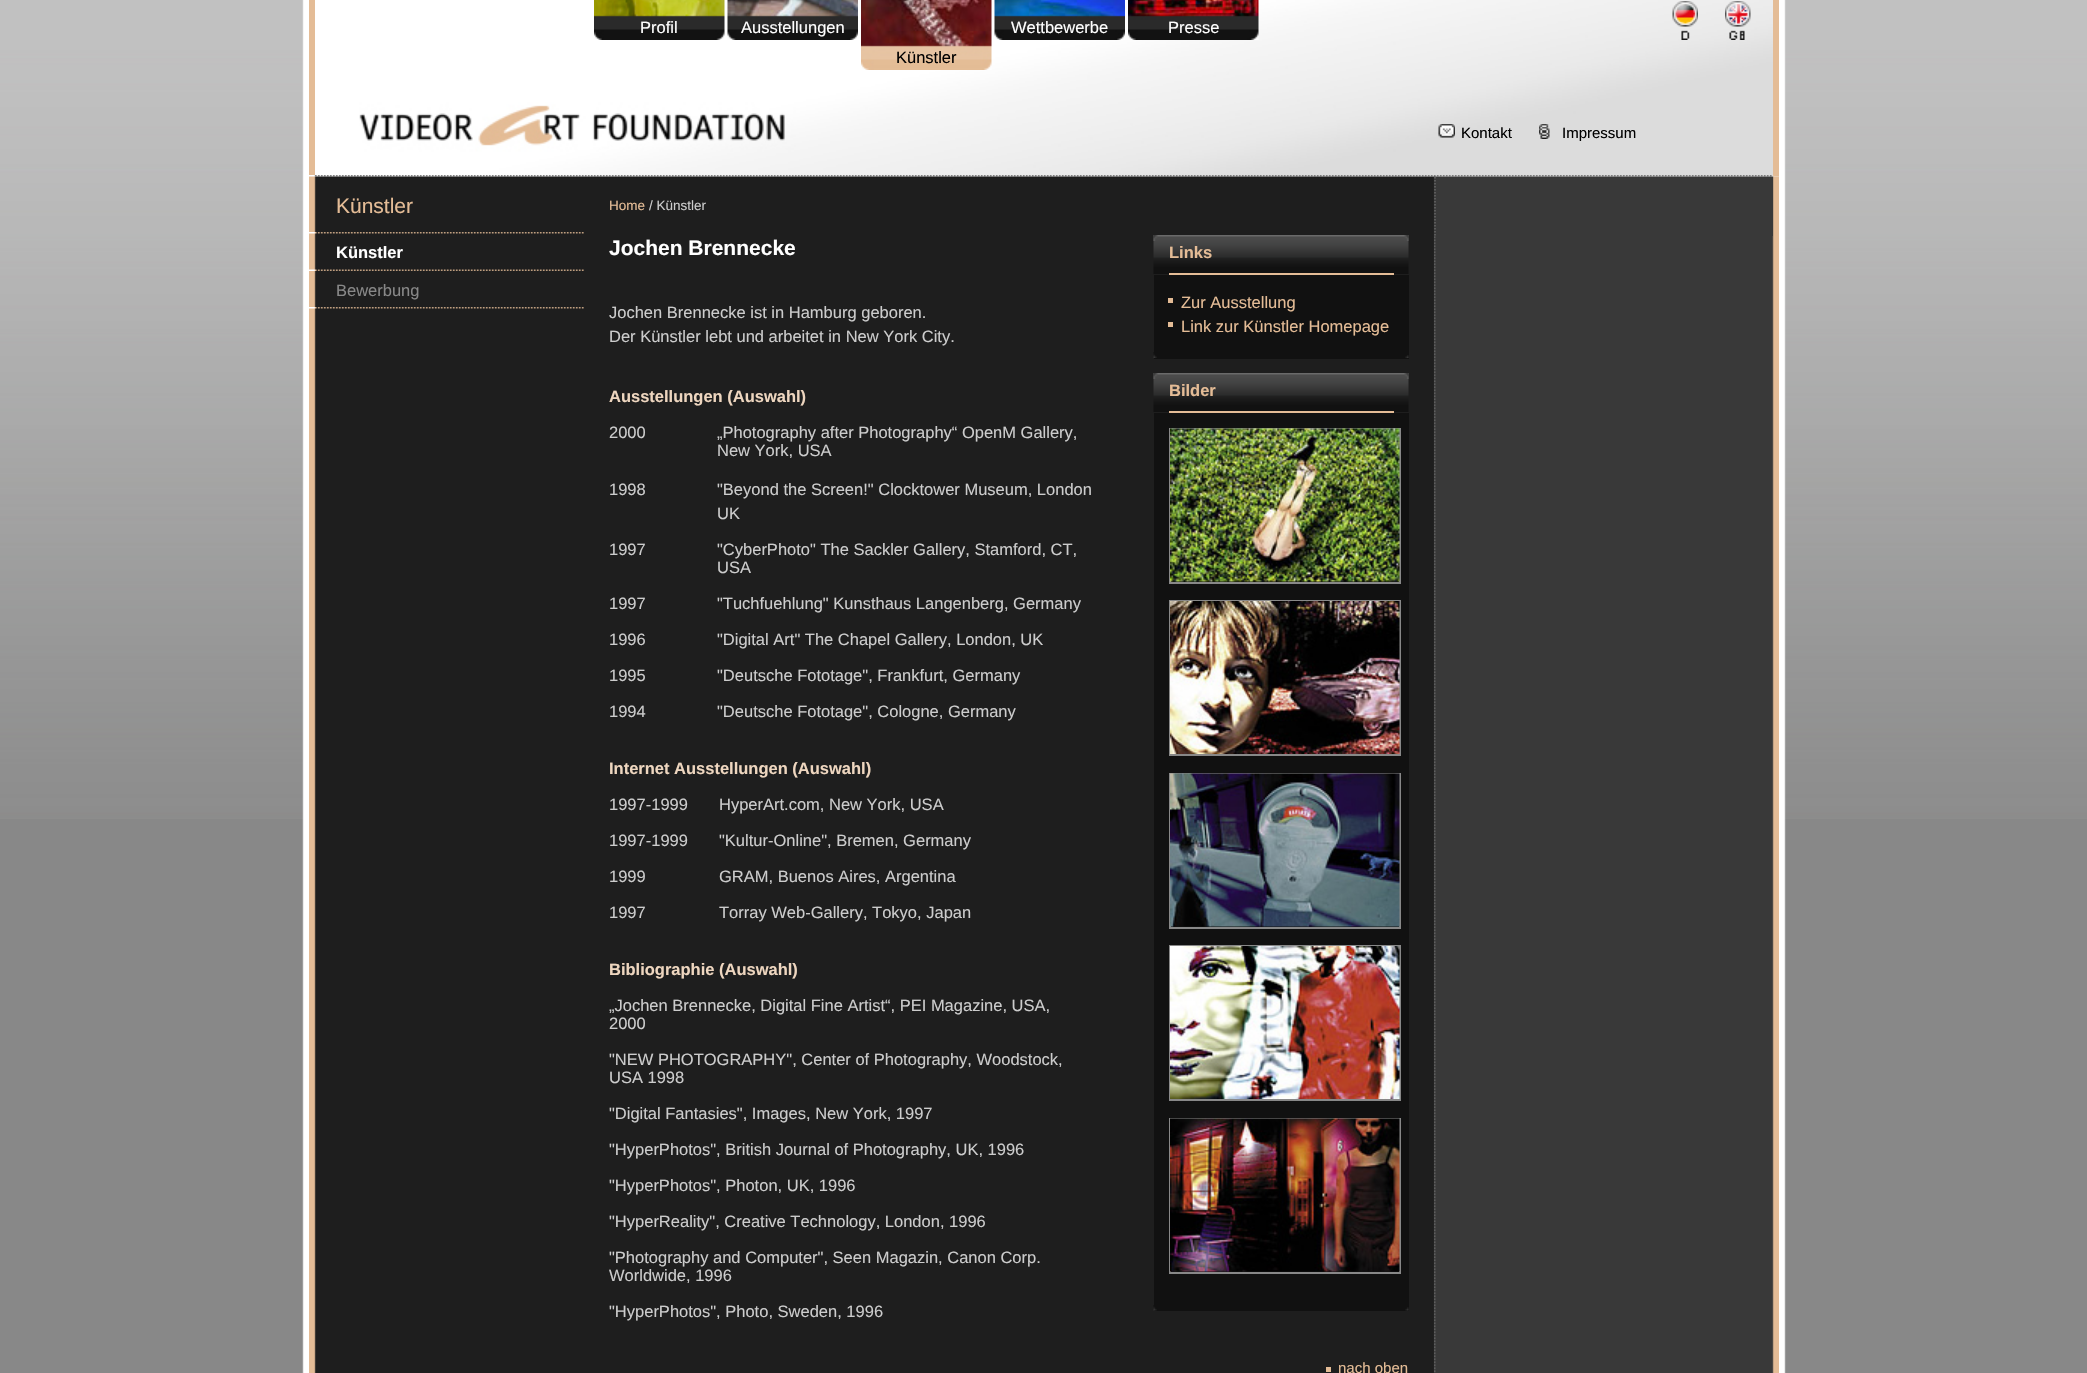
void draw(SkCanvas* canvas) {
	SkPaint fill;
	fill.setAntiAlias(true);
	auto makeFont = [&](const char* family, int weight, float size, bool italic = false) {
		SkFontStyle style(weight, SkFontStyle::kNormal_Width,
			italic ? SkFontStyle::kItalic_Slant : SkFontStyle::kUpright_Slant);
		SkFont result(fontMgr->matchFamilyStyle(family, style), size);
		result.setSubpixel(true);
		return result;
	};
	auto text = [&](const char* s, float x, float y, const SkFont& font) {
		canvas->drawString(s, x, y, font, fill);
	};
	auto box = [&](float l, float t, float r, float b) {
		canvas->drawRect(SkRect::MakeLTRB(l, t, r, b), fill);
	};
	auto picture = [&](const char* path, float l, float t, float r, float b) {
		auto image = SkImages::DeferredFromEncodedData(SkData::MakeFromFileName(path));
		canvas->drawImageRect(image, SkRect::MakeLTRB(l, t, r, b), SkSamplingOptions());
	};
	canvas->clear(0xFF888888);
	picture("image0.png", 0, 0, 2087, 819);
	picture("image1.png", 302, 0, 1786, 1373);
	picture("image2.png", 359, 0, 1773, 175);
	fill.setColor(0xFFE4BC96);
	box(1773, 0, 1779, 176);
	box(309, 0, 315, 176);
	picture("image3.png", 594, 0, 725, 40);
	picture("image4.png", 727, 0, 858, 40);
	picture("image5.png", 994, 0, 1125, 40);
	picture("image6.png", 1128, 0, 1259, 40);
	picture("image7.png", 861, 0, 992, 70);
	picture("image8.png", 1672, 1, 1698, 40);
	picture("image9.png", 1725, 1, 1751, 40);
	picture("image10.png", 1438, 124, 1455, 138);
	picture("image11.png", 1539, 124, 1550, 139);
	picture("image12.png", 309, 175, 1779, 177);
	picture("image13.png", 309, 176, 1779, 1373);
	picture("image14.png", 1434, 176, 1436, 1373);
	picture("image15.png", 309, 232, 584, 234);
	picture("image16.png", 309, 269, 584, 271);
	picture("image15.png", 309, 307, 584, 309);
	picture("image17.png", 1153, 235, 1409, 274);
	picture("image18.png", 1404, 235, 1409, 241);
	picture("image19.png", 1153, 235, 1158, 241);
	box(1169, 273, 1394, 275);
	fill.setColor(0xFF111111);
	box(1154, 275, 1409, 359);
	fill.setColor(0xFFE4BC96);
	box(1168, 298, 1173, 303);
	box(1168, 322, 1173, 327);
	picture("image20.png", 1405, 355, 1409, 358);
	picture("image21.png", 1153, 352, 1157, 358);
	picture("image17.png", 1153, 373, 1409, 412);
	picture("image18.png", 1404, 373, 1409, 379);
	picture("image19.png", 1153, 373, 1158, 379);
	box(1169, 411, 1394, 413);
	fill.setColor(0xFF111111);
	box(1154, 413, 1409, 1311);
	fill.setStyle(SkPaint::kStroke_Style);
	fill.setStrokeWidth(2);
	fill.setColor(0xFF888888);
	canvas->drawRect(SkRect::MakeLTRB(1170, 429, 1400, 583), fill);
	picture("image22.png", 1170, 428, 1400, 582);
	canvas->drawRect(SkRect::MakeLTRB(1170, 601, 1400, 755), fill);
	picture("image23.png", 1170, 601, 1400, 754);
	canvas->drawRect(SkRect::MakeLTRB(1170, 774, 1400, 928), fill);
	picture("image24.png", 1170, 773, 1400, 927);
	canvas->drawRect(SkRect::MakeLTRB(1170, 946, 1400, 1100), fill);
	picture("image25.png", 1170, 946, 1400, 1099);
	canvas->drawRect(SkRect::MakeLTRB(1170, 1119, 1400, 1273), fill);
	picture("image26.png", 1170, 1118, 1400, 1272);
	picture("image27.png", 1405, 1307, 1409, 1311);
	picture("image28.png", 1153, 1305, 1157, 1311);
	fill.setStyle(SkPaint::kFill_Style);
	fill.setColor(0xFFE4BC96);
	box(1326, 1367, 1331, 1372);
	fill.setColor(0xFF393939);
	box(1434, 177, 1773, 236);
	fill.setStyle(SkPaint::kStroke_Style);
	fill.setStrokeWidth(1.5f);
	fill.setColor(0xFF666666);
	fill.setPathEffect(SkDashPathEffect::Make({{1.5f, 1.5f}}, 0));
	canvas->drawPath(SkPathBuilder().moveTo(1435, 177).lineTo(1435, 235.5f).detach(), fill);
	fill.setPathEffect(nullptr);
	auto font1 = makeFont("Liberation Sans", 400, 16.5f);
	fill.setStyle(SkPaint::kFill_Style);
	fill.setColor(0xFFFFFFFF);
	text("Profil", 640, 33, font1);
	text("Ausstellungen", 741, 33, font1);
	text("Wettbewerbe", 1011, 33, font1);
	text("Presse", 1168, 33, font1);
	fill.setColor(0xFF000000);
	text("Künstler", 896, 63, font1);
	auto font2 = makeFont("Liberation Sans", 400, 15);
	text("Kontakt", 1461, 138, font2);
	text("Impressum", 1562, 138, font2);
	auto font3 = makeFont("Liberation Sans", 400, 21);
	fill.setColor(0xFFE4BC96);
	text("Künstler", 336, 213, font3);
	auto font4 = makeFont("Liberation Sans", 700, 16.5f);
	fill.setColor(0xFFFFFFFF);
	text("Künstler", 336, 258, font4);
	fill.setColor(0xFF888888);
	text("Bewerbung", 336, 296, font1);
	auto font5 = makeFont("Liberation Sans", 400, 13.5f);
	fill.setColor(0xFFE4BC96);
	text("Home", 609, 210, font5);
	fill.setColor(0xFFCCCCCC);
	text("/ Künstler", 649, 210, font5);
	auto font6 = makeFont("Liberation Sans", 700, 21);
	fill.setColor(0xFFFFFFFF);
	text("Jochen Brennecke", 609, 255, font6);
	fill.setColor(0xFFCCCCCC);
	text("Jochen Brennecke ist in Hamburg geboren.", 609, 318, font1);
	text("Der Künstler lebt und arbeitet in New York City.", 609, 342, font1);
	fill.setColor(0xFFEED6BF);
	text("Ausstellungen (Auswahl)", 609, 402, font4);
	fill.setColor(0xFFCCCCCC);
	text("2000", 609, 438, font1);
	text("„Photography after Photography“ OpenM Gallery,", 717, 438, font1);
	text("New York, USA", 717, 456, font1);
	text("1998", 609, 495, font1);
	text("\"Beyond the Screen!\" Clocktower Museum, London", 717, 495, font1);
	text("UK", 717, 519, font1);
	text("1997", 609, 555, font1);
	text("\"CyberPhoto\" The Sackler Gallery, Stamford, CT,", 717, 555, font1);
	text("USA", 717, 573, font1);
	text("1997", 609, 609, font1);
	text("\"Tuchfuehlung\" Kunsthaus Langenberg, Germany", 717, 609, font1);
	text("1996", 609, 645, font1);
	text("\"Digital Art\" The Chapel Gallery, London, UK", 717, 645, font1);
	text("1995", 609, 681, font1);
	text("\"Deutsche Fototage\", Frankfurt, Germany", 717, 681, font1);
	text("1994", 609, 717, font1);
	text("\"Deutsche Fototage\", Cologne, Germany", 717, 717, font1);
	fill.setColor(0xFFEED6BF);
	text("Internet Ausstellungen (Auswahl)", 609, 774, font4);
	fill.setColor(0xFFCCCCCC);
	text("1997-1999", 609, 810, font1);
	text("HyperArt.com, New York, USA", 719, 810, font1);
	text("1997-1999", 609, 846, font1);
	text("\"Kultur-Online\", Bremen, Germany", 719, 846, font1);
	text("1999", 609, 882, font1);
	text("GRAM, Buenos Aires, Argentina", 719, 882, font1);
	text("1997", 609, 918, font1);
	text("Torray Web-Gallery, Tokyo, Japan", 719, 918, font1);
	fill.setColor(0xFFEED6BF);
	text("Bibliographie (Auswahl)", 609, 975, font4);
	fill.setColor(0xFFCCCCCC);
	text("„Jochen Brennecke, Digital Fine Artist“, PEI Magazine, USA,", 609, 1011, font1);
	text("2000", 609, 1029, font1);
	text("\"NEW PHOTOGRAPHY\", Center of Photography, Woodstock,", 609, 1065, font1);
	text("USA 1998", 609, 1083, font1);
	text("\"Digital Fantasies\", Images, New York, 1997", 609, 1119, font1);
	text("\"HyperPhotos\", British Journal of Photography, UK, 1996", 609, 1155, font1);
	text("\"HyperPhotos\", Photon, UK, 1996", 609, 1191, font1);
	text("\"HyperReality\", Creative Technology, London, 1996", 609, 1227, font1);
	text("\"Photography and Computer\", Seen Magazin, Canon Corp.", 609, 1263, font1);
	text("Worldwide, 1996", 609, 1281, font1);
	text("\"HyperPhotos\", Photo, Sweden, 1996", 609, 1317, font1);
	fill.setColor(0xFFE4BC96);
	text("Links", 1169, 258, font4);
	text("Zur Ausstellung", 1181, 308, font1);
	text("Link zur Künstler Homepage", 1181, 332, font1);
	text("Bilder", 1169, 396, font4);
	text("nach oben", 1338, 1373, font2);
}
